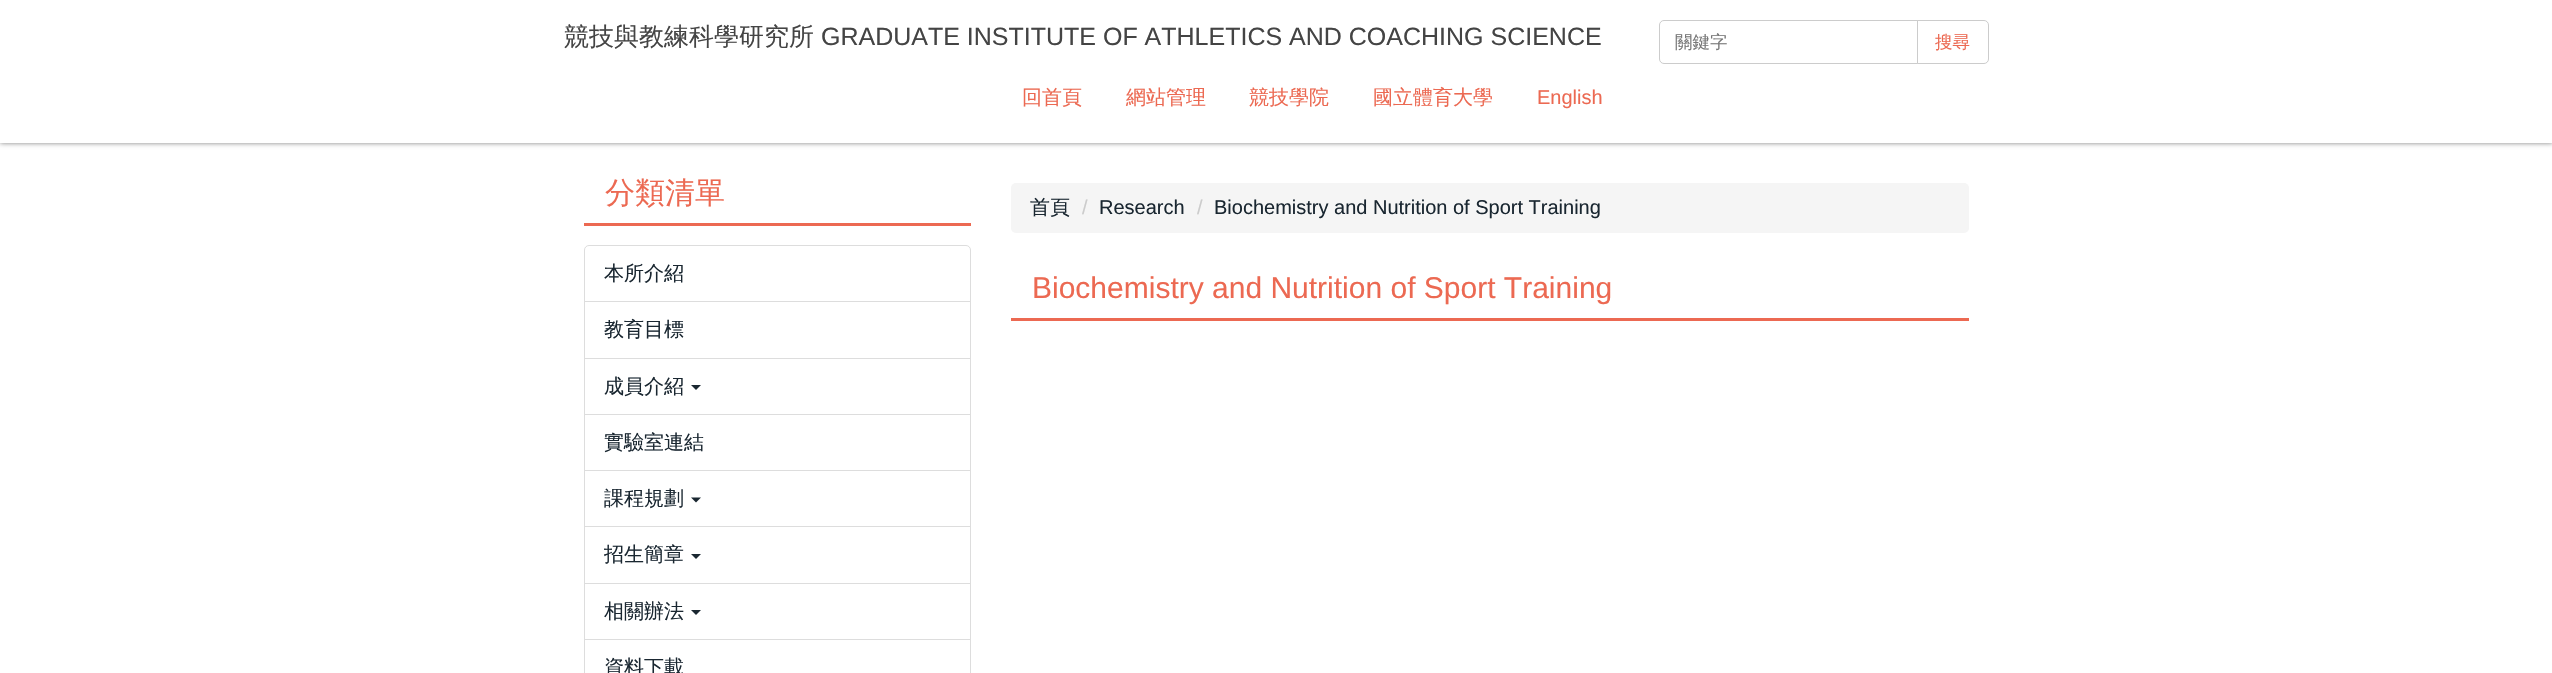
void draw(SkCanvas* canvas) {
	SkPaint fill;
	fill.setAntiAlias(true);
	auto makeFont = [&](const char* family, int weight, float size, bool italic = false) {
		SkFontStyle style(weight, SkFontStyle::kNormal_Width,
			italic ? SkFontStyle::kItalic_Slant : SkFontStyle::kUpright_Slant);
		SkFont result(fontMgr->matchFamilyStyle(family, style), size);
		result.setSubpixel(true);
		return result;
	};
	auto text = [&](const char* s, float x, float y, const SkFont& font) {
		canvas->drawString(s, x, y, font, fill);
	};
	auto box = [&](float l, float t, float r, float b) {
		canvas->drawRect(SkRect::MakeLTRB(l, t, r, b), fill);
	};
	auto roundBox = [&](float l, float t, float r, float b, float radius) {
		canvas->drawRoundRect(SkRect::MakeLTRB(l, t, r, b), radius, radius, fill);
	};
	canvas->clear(0xFFFFFFFF);
	fill.setColor(0x80000000);
	fill.setMaskFilter(SkMaskFilter::MakeBlur(kNormal_SkBlurStyle, 2.5f));
	canvas->drawRect(SkRect::MakeLTRB(0, 0, 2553, 143), fill);
	fill.setMaskFilter(nullptr);
	fill.setColor(0xFFFFFFFF);
	box(0, 0, 2552, 143);
	fill.setStyle(SkPaint::kStroke_Style);
	fill.setStrokeWidth(1);
	fill.setColor(0xFFCCCCCC);
	canvas->drawPath(SkPathBuilder().moveTo(1916.5f, 20.5f).lineTo(1984, 20.5f).cubicTo(1986.5f, 20.5f, 1988.5f, 22.5f, 1988.5f, 25).lineTo(1988.5f, 59).cubicTo(1988.5f, 61.5f, 1986.5f, 63.5f, 1984, 63.5f).lineTo(1916.5f, 63.5f).close().detach(), fill);
	fill.setStyle(SkPaint::kFill_Style);
	fill.setColor(0xFFFFFFFF);
	canvas->drawPath(SkPathBuilder().moveTo(1664, 20.5f).lineTo(1917.5f, 20.5f).lineTo(1917.5f, 63.5f).lineTo(1664, 63.5f).cubicTo(1661.5f, 63.5f, 1659.5f, 61.5f, 1659.5f, 59).lineTo(1659.5f, 25).cubicTo(1659.5f, 22.5f, 1661.5f, 20.5f, 1664, 20.5f).close().detach(), fill);
	fill.setStyle(SkPaint::kStroke_Style);
	fill.setColor(0xFFCCCCCC);
	canvas->drawPath(SkPathBuilder().moveTo(1664, 20.5f).lineTo(1917.5f, 20.5f).lineTo(1917.5f, 63.5f).lineTo(1664, 63.5f).cubicTo(1661.5f, 63.5f, 1659.5f, 61.5f, 1659.5f, 59).lineTo(1659.5f, 25).cubicTo(1659.5f, 22.5f, 1661.5f, 20.5f, 1664, 20.5f).close().detach(), fill);
	fill.setStyle(SkPaint::kFill_Style);
	fill.setColor(0xFFEC6952);
	box(584, 223, 971, 226);
	fill.setStyle(SkPaint::kStroke_Style);
	fill.setColor(0xFFDDDDDD);
	canvas->drawPath(SkPathBuilder().moveTo(589, 245.5f).lineTo(966, 245.5f).cubicTo(968.5f, 245.5f, 970.5f, 247.5f, 970.5f, 250).lineTo(970.5f, 302.5f).lineTo(584.5f, 302.5f).lineTo(584.5f, 250).cubicTo(584.5f, 247.5f, 586.5f, 245.5f, 589, 245.5f).close().detach(), fill);
	fill.setStyle(SkPaint::kFill_Style);
	fill.setColor(0xFFFFFFFF);
	box(585, 302, 970, 303);
	fill.setStyle(SkPaint::kStroke_Style);
	fill.setColor(0xFFDDDDDD);
	canvas->drawRect(SkRect::MakeLTRB(584.5f, 301.5f, 970.5f, 358.5f), fill);
	canvas->drawRect(SkRect::MakeLTRB(584.5f, 358.5f, 970.5f, 414.5f), fill);
	fill.setStyle(SkPaint::kFill_Style);
	fill.setColor(0xFF1A2731);
	canvas->drawPath(SkPathBuilder().moveTo(691, 385).lineTo(701, 385).lineTo(696, 390).close().detach(), fill);
	fill.setStyle(SkPaint::kStroke_Style);
	fill.setColor(0xFFDDDDDD);
	canvas->drawRect(SkRect::MakeLTRB(584.5f, 414.5f, 970.5f, 470.5f), fill);
	canvas->drawRect(SkRect::MakeLTRB(584.5f, 470.5f, 970.5f, 527.5f), fill);
	fill.setStyle(SkPaint::kFill_Style);
	fill.setColor(0xFF1A2731);
	canvas->drawPath(SkPathBuilder().moveTo(691, 497.5f).lineTo(701, 497.5f).lineTo(696, 502.5f).close().detach(), fill);
	fill.setColor(0xFFFFFFFF);
	box(585, 527, 970, 528);
	fill.setStyle(SkPaint::kStroke_Style);
	fill.setColor(0xFFDDDDDD);
	canvas->drawRect(SkRect::MakeLTRB(584.5f, 526.5f, 970.5f, 583.5f), fill);
	fill.setStyle(SkPaint::kFill_Style);
	fill.setColor(0xFF1A2731);
	canvas->drawPath(SkPathBuilder().moveTo(691, 554).lineTo(701, 554).lineTo(696, 559).close().detach(), fill);
	fill.setStyle(SkPaint::kStroke_Style);
	fill.setColor(0xFFDDDDDD);
	canvas->drawRect(SkRect::MakeLTRB(584.5f, 583.5f, 970.5f, 639.5f), fill);
	fill.setStyle(SkPaint::kFill_Style);
	fill.setColor(0xFF1A2731);
	canvas->drawPath(SkPathBuilder().moveTo(691, 610).lineTo(701, 610).lineTo(696, 615).close().detach(), fill);
	fill.setStyle(SkPaint::kStroke_Style);
	fill.setColor(0xFFDDDDDD);
	canvas->drawRect(SkRect::MakeLTRB(584.5f, 639.5f, 970.5f, 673.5f), fill);
	fill.setStyle(SkPaint::kFill_Style);
	fill.setColor(0xFFF5F5F5);
	roundBox(1011, 183, 1969, 233, 5);
	fill.setColor(0xFFEC6952);
	box(1011, 318, 1969, 321);
	auto font1 = makeFont("WenQuanYi Zen Hei", 500, 25);
	fill.setColor(0xFF444444);
	text("競技與教練科學研究所", 564, 45, font1);
	auto font2 = makeFont("Liberation Sans", 400, 25);
	text("GRADUATE INSTITUTE OF ATHLETICS AND COACHING SCIENCE", 821, 45, font2);
	auto font3 = makeFont("WenQuanYi Zen Hei", 500, 17.5f);
	fill.setColor(0xFF777777);
	text("關鍵字", 1675, 48, font3);
	fill.setColor(0xFFEC6952);
	text("搜尋", 1935, 48, font3);
	auto font4 = makeFont("WenQuanYi Zen Hei", 500, 20);
	text("回首頁", 1022, 104, font4);
	text("網站管理", 1126, 104, font4);
	text("競技學院", 1249, 104, font4);
	text("國立體育大學", 1373, 104, font4);
	auto font5 = makeFont("Liberation Sans", 400, 20);
	text("English", 1537, 104, font5);
	auto font6 = makeFont("WenQuanYi Zen Hei", 500, 30);
	text("分類清單", 605, 203, font6);
	fill.setColor(0xFF1A2731);
	text("本所介紹", 604, 280, font4);
	text("教育目標", 604, 336, font4);
	text("成員介紹", 604, 393, font4);
	text("實驗室連結", 604, 449, font4);
	text("課程規劃", 604, 505, font4);
	text("招生簡章", 604, 561, font4);
	text("相關辦法", 604, 618, font4);
	text("資料下載", 604, 674, font4);
	text("首頁", 1030, 214, font4);
	fill.setColor(0xFFCCCCCC);
	text("/", 1082, 214, font5);
	fill.setColor(0xFF1A2731);
	text("Research", 1099, 214, font5);
	fill.setColor(0xFFCCCCCC);
	text("/", 1197, 214, font5);
	fill.setColor(0xFF1A2731);
	text("Biochemistry and Nutrition of Sport Training", 1214, 214, font5);
	auto font7 = makeFont("Liberation Sans", 400, 30);
	fill.setColor(0xFFEC6952);
	text("Biochemistry and Nutrition of Sport Training", 1032, 298, font7);
}
